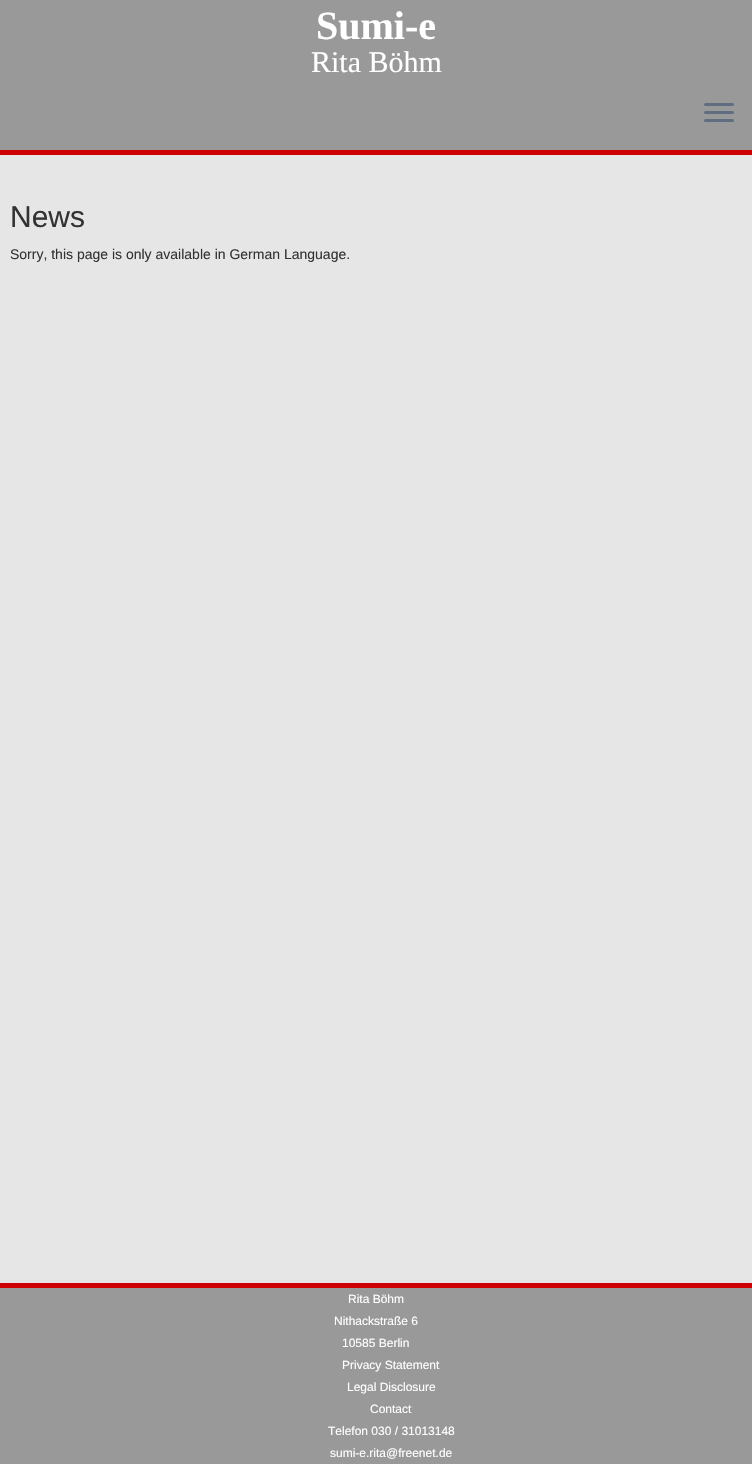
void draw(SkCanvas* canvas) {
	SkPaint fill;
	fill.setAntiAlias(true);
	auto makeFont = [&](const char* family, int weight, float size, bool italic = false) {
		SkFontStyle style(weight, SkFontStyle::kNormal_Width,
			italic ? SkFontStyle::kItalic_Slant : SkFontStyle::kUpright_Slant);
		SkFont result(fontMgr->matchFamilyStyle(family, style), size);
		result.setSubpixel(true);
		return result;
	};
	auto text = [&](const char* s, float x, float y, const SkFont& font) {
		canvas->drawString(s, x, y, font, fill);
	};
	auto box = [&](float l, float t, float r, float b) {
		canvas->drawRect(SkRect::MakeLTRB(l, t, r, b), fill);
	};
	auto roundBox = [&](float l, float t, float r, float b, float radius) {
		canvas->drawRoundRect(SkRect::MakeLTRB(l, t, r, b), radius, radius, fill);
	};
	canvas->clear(0xFFE6E6E6);
	fill.setColor(0xFF999999);
	box(0, 0, 752, 150);
	fill.setColor(0xFFCC0000);
	box(0, 150, 752, 155);
	fill.setColor(0xFF5F6F81);
	roundBox(704, 103, 734, 106, 1.5f);
	roundBox(704, 111, 734, 114, 1.5f);
	roundBox(704, 119, 734, 122, 1.5f);
	fill.setColor(0xFF999999);
	box(0, 1288, 752, 1464);
	fill.setColor(0xFFCC0000);
	box(0, 1283, 752, 1288);
	auto font1 = makeFont("Liberation Serif", 700, 40);
	fill.setColor(0xFFFFFFFF);
	text("Sumi-e", 316, 39, font1);
	auto font2 = makeFont("Liberation Serif", 400, 30);
	text("Rita Böhm", 311, 72, font2);
	auto font3 = makeFont("Liberation Sans", 400, 30);
	fill.setColor(0xFF333333);
	text("News", 10, 227, font3);
	auto font4 = makeFont("Liberation Sans", 400, 14);
	text("Sorry, this page is only available in German Language.", 10, 259, font4);
	auto font5 = makeFont("Liberation Sans", 400, 12);
	fill.setColor(0xFFFFFFFF);
	text("Rita Böhm", 348, 1303, font5);
	text("Nithackstraße 6", 334, 1325, font5);
	text("10585 Berlin", 342, 1347, font5);
	text("Privacy Statement", 342, 1369, font5);
	text("Legal Disclosure", 347, 1391, font5);
	text("Contact", 370, 1413, font5);
	text("Telefon 030 / 31013148", 328, 1435, font5);
	text("sumi-e.rita@freenet.de", 330, 1457, font5);
}
